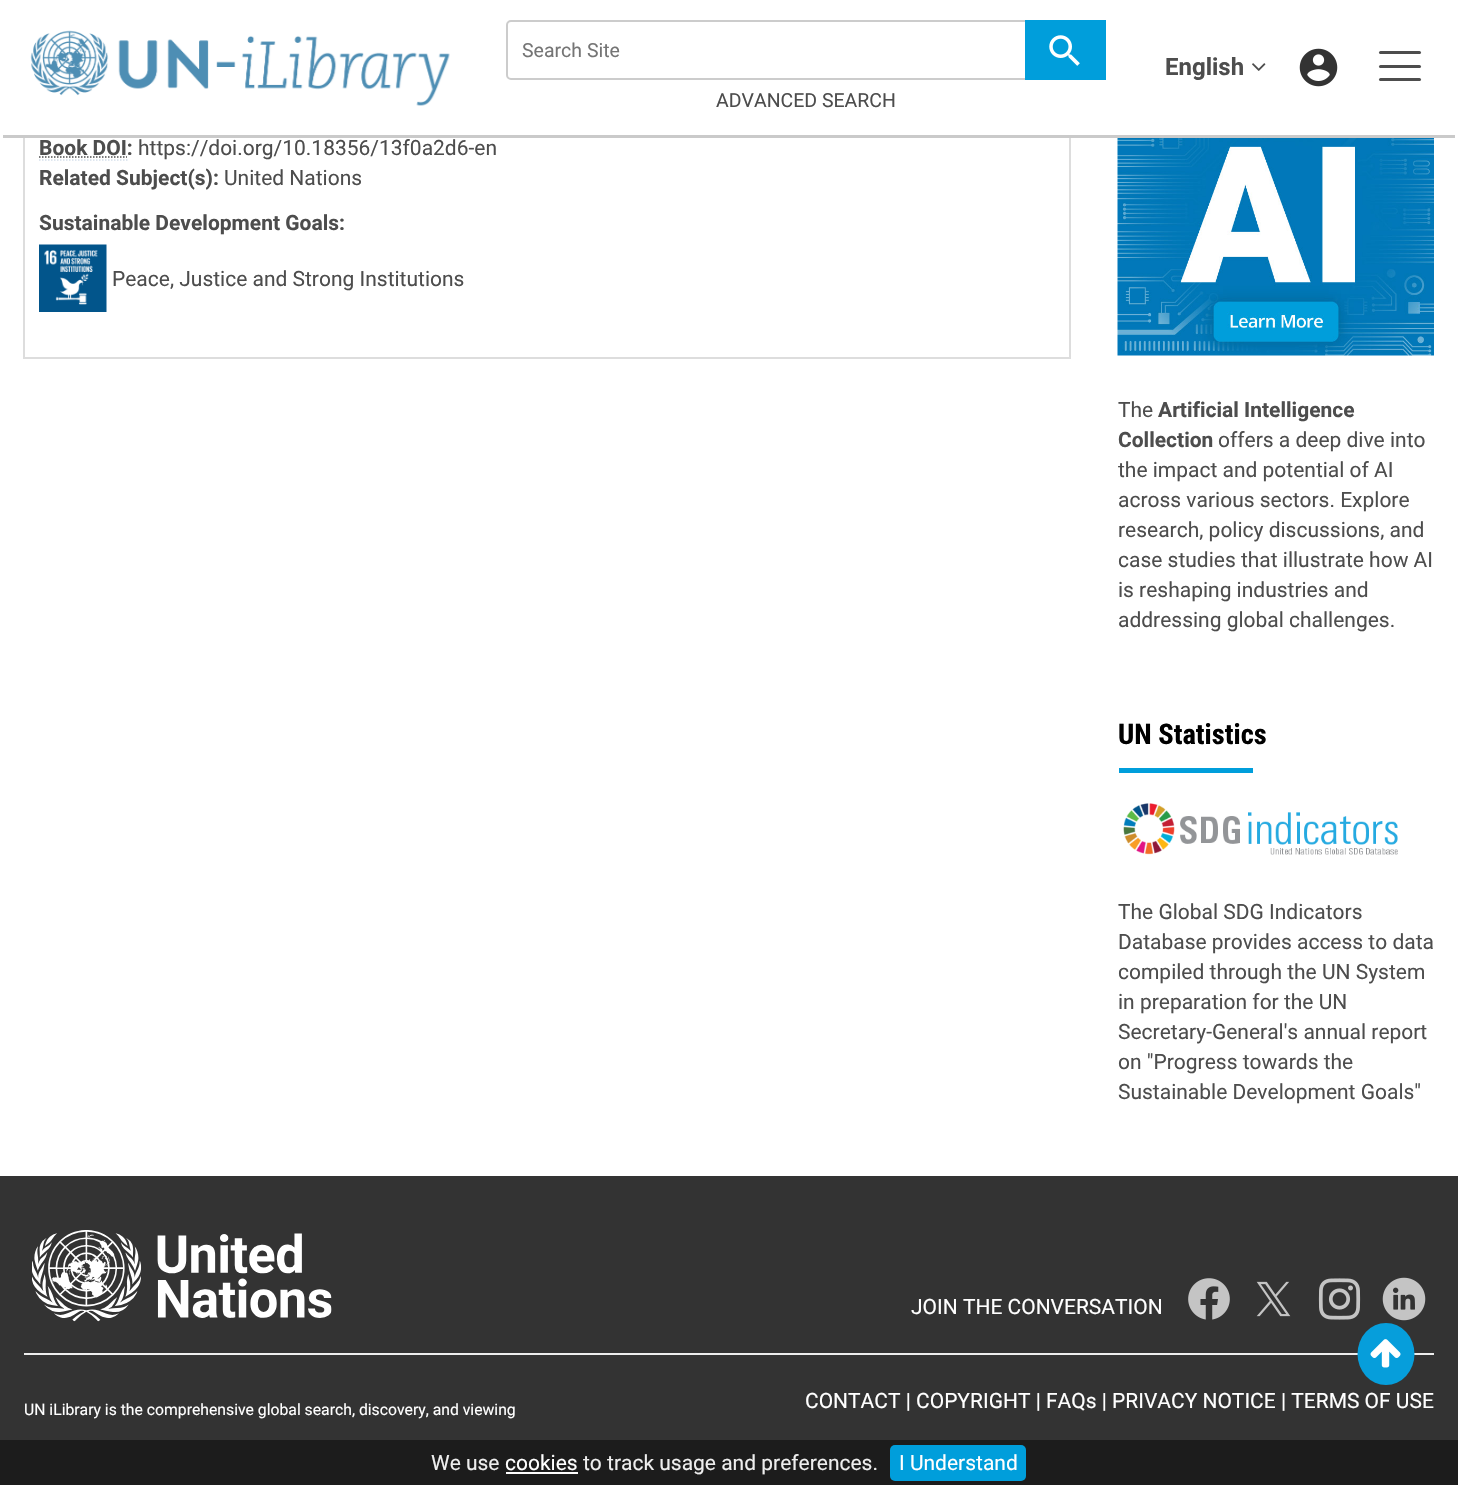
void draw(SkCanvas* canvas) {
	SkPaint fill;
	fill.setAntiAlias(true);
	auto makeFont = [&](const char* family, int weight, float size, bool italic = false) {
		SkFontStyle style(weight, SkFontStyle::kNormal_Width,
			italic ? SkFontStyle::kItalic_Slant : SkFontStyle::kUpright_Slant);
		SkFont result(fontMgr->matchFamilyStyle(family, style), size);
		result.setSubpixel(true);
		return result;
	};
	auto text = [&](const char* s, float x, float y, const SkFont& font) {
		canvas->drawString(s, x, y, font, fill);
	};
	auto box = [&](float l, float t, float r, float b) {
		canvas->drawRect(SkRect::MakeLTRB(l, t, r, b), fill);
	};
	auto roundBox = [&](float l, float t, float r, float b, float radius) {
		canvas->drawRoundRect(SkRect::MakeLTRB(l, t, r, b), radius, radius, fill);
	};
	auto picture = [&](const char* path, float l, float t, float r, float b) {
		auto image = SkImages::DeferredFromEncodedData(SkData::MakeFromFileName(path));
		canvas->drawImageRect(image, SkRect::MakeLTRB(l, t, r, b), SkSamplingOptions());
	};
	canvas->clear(0xFFFFFFFF);
	fill.setStyle(SkPaint::kStroke_Style);
	fill.setStrokeWidth(2);
	fill.setColor(0xFFDDDDDD);
	canvas->drawRect(SkRect::MakeLTRB(24, -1, 1070, 358), fill);
	fill.setStyle(SkPaint::kFill_Style);
	fill.setColor(0xFFFFFFFF);
	roundBox(0, 0, 1458, 138, 6);
	fill.setColor(0xFFCACACA);
	box(3, 135, 1455, 138);
	picture("image0.png", 30, 30, 450, 106);
	fill.setStyle(SkPaint::kStroke_Style);
	fill.setColor(0xFFCCCCCC);
	canvas->drawRoundRect(SkRect::MakeLTRB(507, 21, 1105, 79), 4, 4, fill);
	fill.setStyle(SkPaint::kFill_Style);
	fill.setColor(0xFF009EDB);
	box(1025, 20, 1106, 80);
	picture("image1.png", 1049, 35, 1080, 66);
	picture("image2.png", 1252, 63, 1266, 71);
	picture("image3.png", 1299, 48, 1338, 87);
	fill.setColor(0xFF4D4D4D);
	roundBox(1379, 51, 1421, 54, 1.5f);
	roundBox(1379, 65, 1421, 68, 1.5f);
	roundBox(1379, 78, 1421, 81, 1.5f);
	fill.setStyle(SkPaint::kStroke_Style);
	fill.setStrokeWidth(1.5f);
	fill.setColor(0xFFD5DFEC);
	fill.setPathEffect(SkDashPathEffect::Make({{1.5f, 1.5f}}, 0));
	canvas->drawPath(SkPathBuilder().moveTo(39, 160).lineTo(127.5f, 160).detach(), fill);
	fill.setPathEffect(nullptr);
	fill.setColor(0xFF4D4D4D);
	fill.setPathEffect(SkDashPathEffect::Make({{1.5f, 1.5f}}, 0));
	canvas->drawPath(SkPathBuilder().moveTo(39, 157).lineTo(127, 157).detach(), fill);
	fill.setPathEffect(nullptr);
	picture("image4.png", 39, 244, 107, 312);
	picture("image5.png", 1117, 138, 1434, 356);
	fill.setStyle(SkPaint::kFill_Style);
	fill.setColor(0xFF009EDB);
	box(1119, 768, 1253, 773);
	picture("image6.png", 1123, 803, 1398, 855);
	fill.setColor(0xFF333333);
	box(0, 1176, 1458, 1485);
	picture("image7.png", 32, 1230, 332, 1322);
	picture("image8.png", 1188, 1278, 1230, 1320);
	picture("image9.png", 1256, 1281, 1291, 1317);
	picture("image10.png", 1318, 1278, 1361, 1320);
	picture("image11.png", 1382, 1277, 1426, 1321);
	fill.setColor(0xFFEEEEEE);
	box(24, 1353, 1434, 1355);
	fill.setColor(0xFF069EDB);
	canvas->drawOval(SkRect::MakeLTRB(1357.5f, 1323, 1414.5f, 1385), fill);
	picture("image12.png", 1370, 1339, 1401, 1368);
	fill.setColor(0xB3111111);
	box(0, 1440, 1458, 1485);
	fill.setColor(0xFFFFFFFF);
	box(506, 1472, 578, 1474);
	fill.setColor(0xFF009EDB);
	roundBox(890, 1445, 1026, 1481, 5);
	auto font1 = makeFont("Roboto", 400, 19.5f);
	fill.setColor(0xFF757575);
	text("Search Site", 522, 57, font1);
	fill.setColor(0xFF4D4D4D);
	text("ADVANCED SEARCH", 716, 107, font1);
	auto font2 = makeFont("Roboto", 700, 24);
	text("English", 1165, 75, font2);
	auto font3 = makeFont("Roboto", 700, 21);
	text("Book DOI:", 39, 155, font3);
	auto font4 = makeFont("Roboto", 400, 21);
	text("https://doi.org/10.18356/13f0a2d6-en", 138, 155, font4);
	text("Related Subject(s):", 39, 185, font3);
	text("United Nations", 224, 185, font4);
	text("Sustainable Development Goals:", 39, 230, font3);
	text("Peace, Justice and Strong Institutions", 112, 286, font4);
	text("The", 1118, 417, font4);
	text("Artificial Intelligence", 1158, 417, font3);
	text("Collection", 1118, 447, font3);
	text("offers a deep dive into", 1218, 447, font4);
	text("the impact and potential of AI", 1118, 477, font4);
	text("across various sectors. Explore", 1118, 507, font4);
	text("research, policy discussions, and", 1118, 537, font4);
	text("case studies that illustrate how AI", 1118, 567, font4);
	text("is reshaping industries and", 1118, 597, font4);
	text("addressing global challenges.", 1118, 627, font4);
	auto font5 = makeFont("Roboto Condensed", 700, 28.5f);
	fill.setColor(0xFF000000);
	text("UN Statistics", 1118, 744, font5);
	fill.setColor(0xFF4D4D4D);
	text("The Global SDG Indicators", 1118, 919, font4);
	text("Database provides access to data", 1118, 949, font4);
	text("compiled through the UN System", 1118, 979, font4);
	text("in preparation for the UN", 1118, 1009, font4);
	text("Secretary-General's annual report", 1118, 1039, font4);
	text("on \"Progress towards the", 1118, 1069, font4);
	text("Sustainable Development Goals\"", 1118, 1099, font4);
	fill.setColor(0xFFFFFFFF);
	text("JOIN THE CONVERSATION", 911, 1314, font4);
	auto font6 = makeFont("Roboto", 400, 15.75f);
	text("UN iLibrary is the comprehensive global search, discovery, and viewing", 24, 1415, font6);
	text("CONTACT | COPYRIGHT | FAQs | PRIVACY NOTICE | TERMS OF USE", 805, 1408, font4);
	fill.setColor(0xFFEEEEEE);
	text("We use", 431, 1470, font4);
	fill.setColor(0xFFFFFFFF);
	text("cookies", 505, 1470, font4);
	fill.setColor(0xFFEEEEEE);
	text("to track usage and preferences.", 583, 1470, font4);
	fill.setColor(0xFFFFFFFF);
	text("I Understand", 899, 1470, font4);
}
